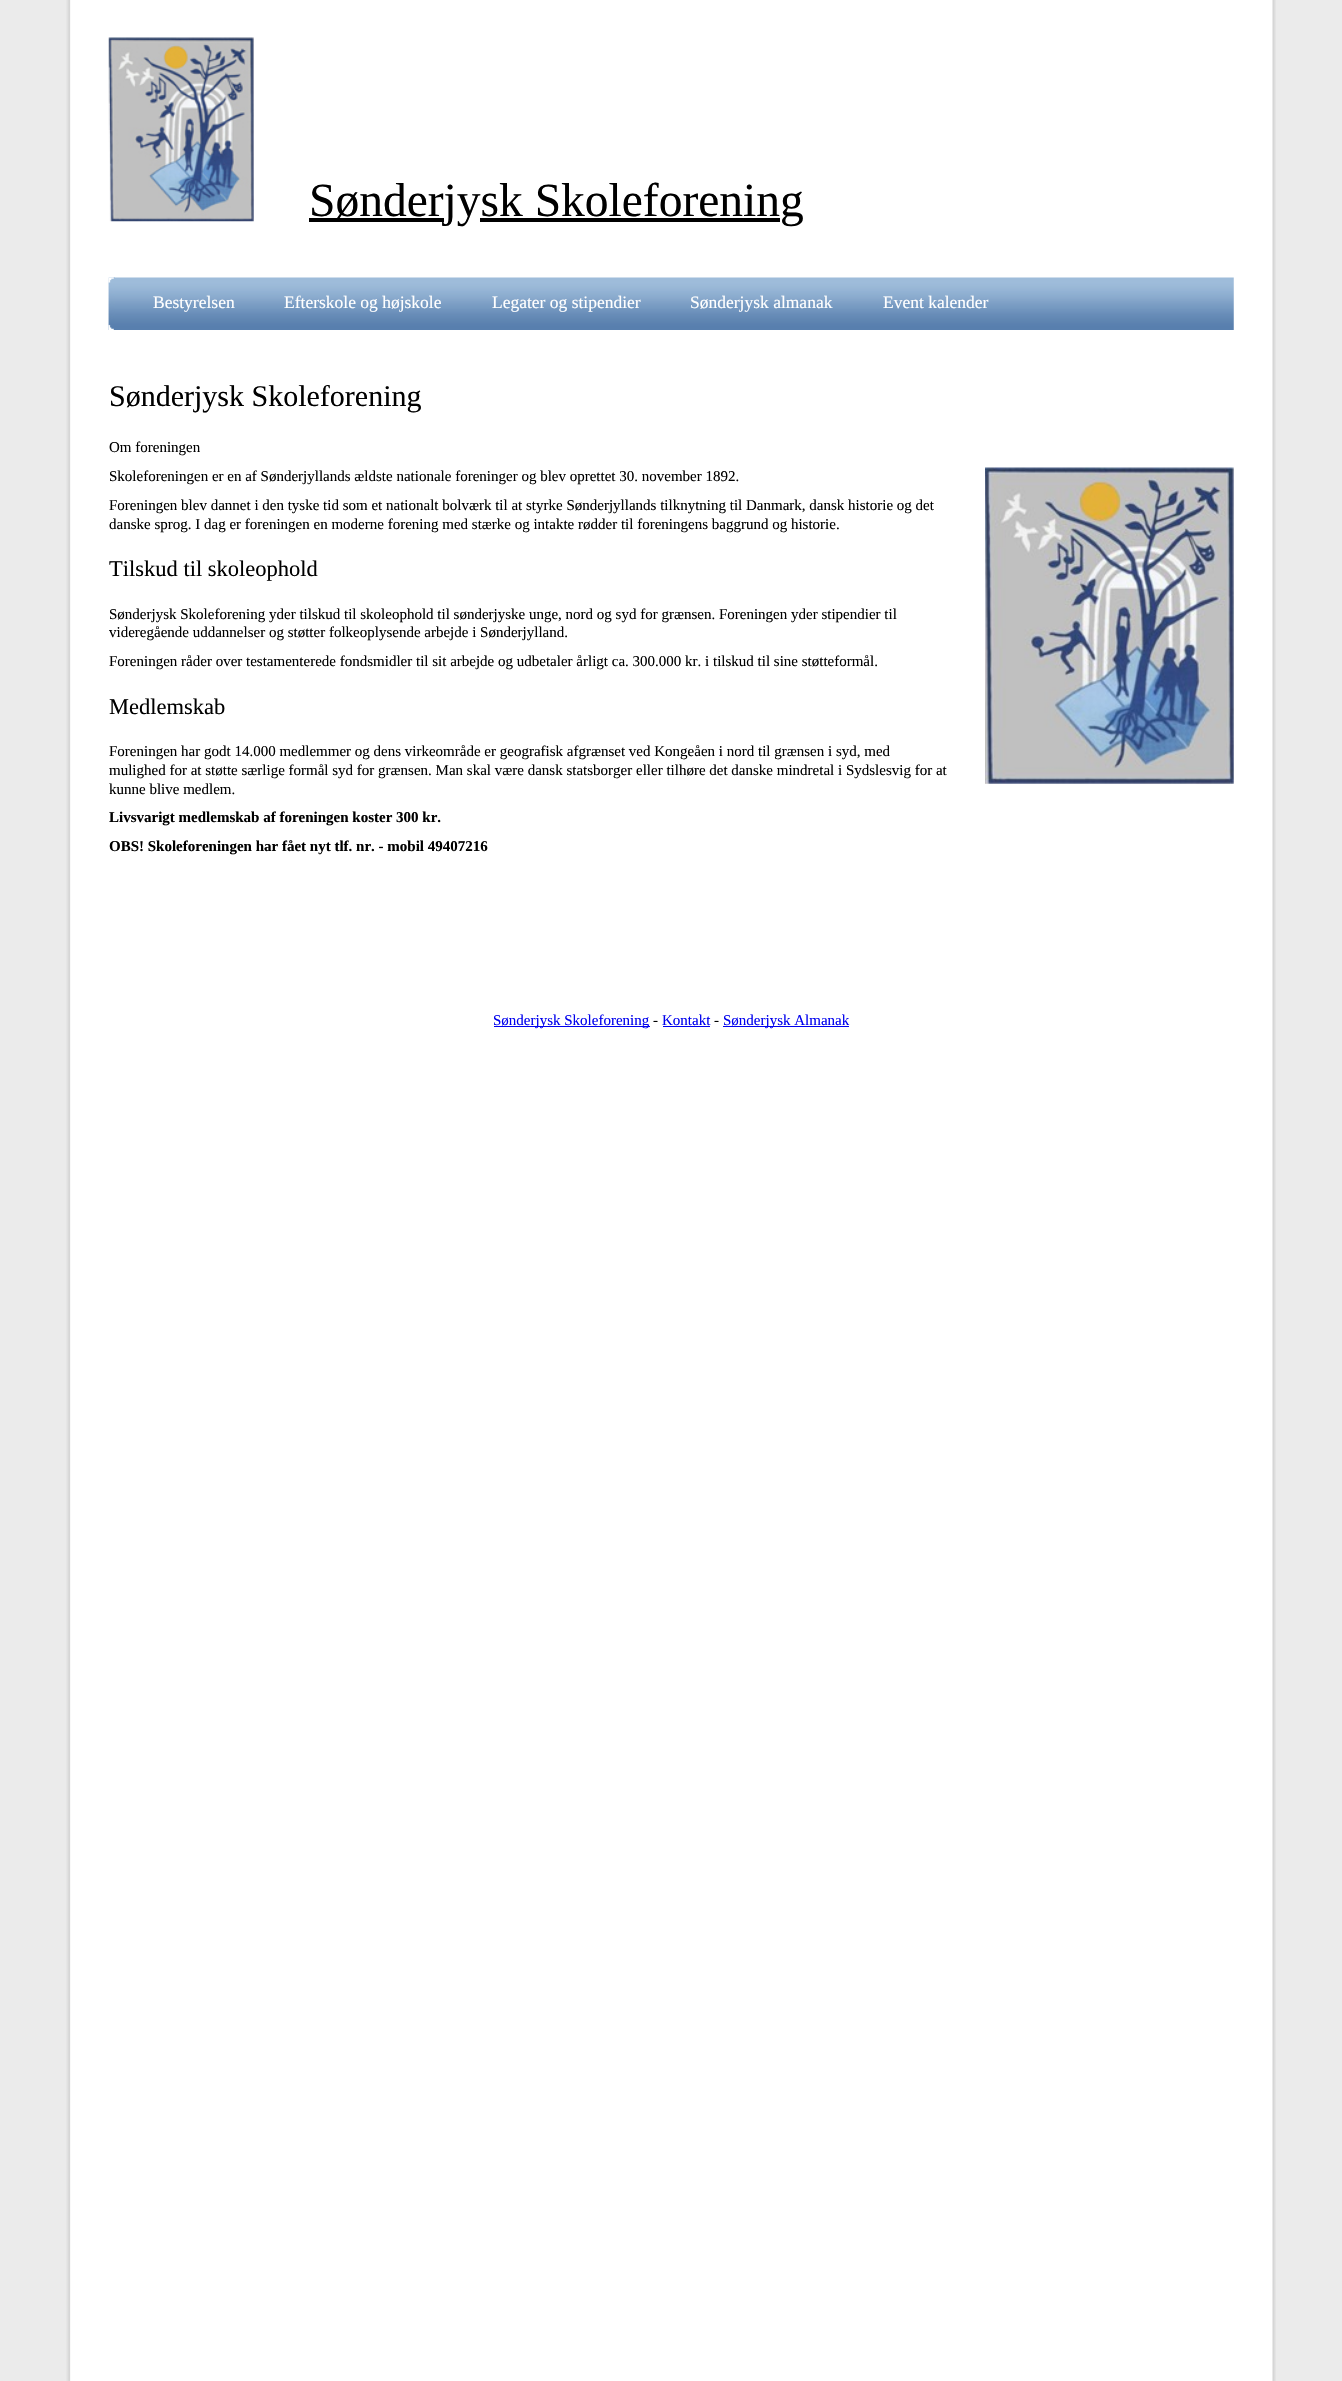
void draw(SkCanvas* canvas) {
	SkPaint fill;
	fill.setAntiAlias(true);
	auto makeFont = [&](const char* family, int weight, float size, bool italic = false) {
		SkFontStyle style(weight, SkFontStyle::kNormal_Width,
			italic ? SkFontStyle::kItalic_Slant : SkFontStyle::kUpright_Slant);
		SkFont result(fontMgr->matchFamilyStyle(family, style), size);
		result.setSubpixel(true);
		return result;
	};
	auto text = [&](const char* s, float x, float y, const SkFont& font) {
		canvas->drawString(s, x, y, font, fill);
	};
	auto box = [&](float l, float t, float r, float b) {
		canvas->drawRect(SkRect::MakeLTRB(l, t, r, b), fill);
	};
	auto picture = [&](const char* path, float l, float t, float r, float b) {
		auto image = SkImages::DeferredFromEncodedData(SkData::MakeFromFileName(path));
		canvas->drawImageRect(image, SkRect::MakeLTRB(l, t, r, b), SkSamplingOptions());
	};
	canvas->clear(0xFFEBEBEB);
	picture("image0.png", 66, 1030, 1276, 2381);
	picture("image1.png", 66, 0, 1276, 1030);
	picture("image2.png", 108, 37, 254, 222);
	fill.setColor(0xFF000000);
	box(309, 218, 444, 222);
	box(480, 218, 780, 222);
	picture("image3.png", 108, 277, 1234, 330);
	picture("image4.png", 108, 277, 115, 330);
	picture("image5.png", 985, 467, 1234, 784);
	fill.setColor(0xFF0000EE);
	box(494, 1026, 650, 1027);
	box(663, 1026, 710, 1027);
	box(723, 1026, 849, 1027);
	auto font1 = makeFont("Liberation Serif", 400, 47.5f);
	fill.setColor(0xFF000000);
	text("Sønderjysk Skoleforening", 309, 216, font1);
	auto font2 = makeFont("Liberation Serif", 400, 17.5f);
	fill.setColor(0xFFFFFFFF);
	text("Bestyrelsen", 153, 308, font2);
	text("Efterskole og højskole", 284, 308, font2);
	text("Legater og stipendier", 492, 308, font2);
	text("Sønderjysk almanak", 690, 308, font2);
	text("Event kalender", 883, 308, font2);
	auto font3 = makeFont("Liberation Serif", 400, 30);
	fill.setColor(0xFF000000);
	text("Sønderjysk Skoleforening", 109, 406, font3);
	auto font4 = makeFont("Liberation Serif", 400, 15);
	text("Om foreningen", 109, 452, font4);
	text("Skoleforeningen er en af Sønderjyllands ældste nationale foreninger og blev oprettet 30. november 1892.", 109, 481, font4);
	text("Foreningen blev dannet i den tyske tid som et nationalt bolværk til at styrke Sønderjyllands tilknytning til Danmark, dansk historie og det", 109, 510, font4);
	text("danske sprog. I dag er foreningen en moderne forening med stærke og intakte rødder til foreningens baggrund og historie.", 109, 529, font4);
	auto font5 = makeFont("Liberation Serif", 400, 22.5f);
	text("Tilskud til skoleophold", 109, 576, font5);
	text("Sønderjysk Skoleforening yder tilskud til skoleophold til sønderjyske unge, nord og syd for grænsen. Foreningen yder stipendier til", 109, 619, font4);
	text("videregående uddannelser og støtter folkeoplysende arbejde i Sønderjylland.", 109, 637, font4);
	text("Foreningen råder over testamenterede fondsmidler til sit arbejde og udbetaler årligt ca. 300.000 kr. i tilskud til sine støtteformål.", 109, 666, font4);
	text("Medlemskab", 109, 714, font5);
	text("Foreningen har godt 14.000 medlemmer og dens virkeområde er geografisk afgrænset ved Kongeåen i nord til grænsen i syd, med", 109, 756, font4);
	text("mulighed for at støtte særlige formål syd for grænsen. Man skal være dansk statsborger eller tilhøre det danske mindretal i Sydslesvig for at", 109, 775, font4);
	text("kunne blive medlem.", 109, 794, font4);
	auto font6 = makeFont("Liberation Serif", 700, 15);
	text("Livsvarigt medlemskab af foreningen koster 300 kr.", 109, 822, font6);
	text("OBS! Skoleforeningen har fået nyt tlf. nr. - mobil 49407216", 109, 851, font6);
	fill.setColor(0xFF0000EE);
	text("Sønderjysk Skoleforening", 493, 1025, font4);
	fill.setColor(0xFF000000);
	text("-", 653, 1025, font4);
	fill.setColor(0xFF0000EE);
	text("Kontakt", 662, 1025, font4);
	fill.setColor(0xFF000000);
	text("-", 714, 1025, font4);
	fill.setColor(0xFF0000EE);
	text("Sønderjysk Almanak", 723, 1025, font4);
}
